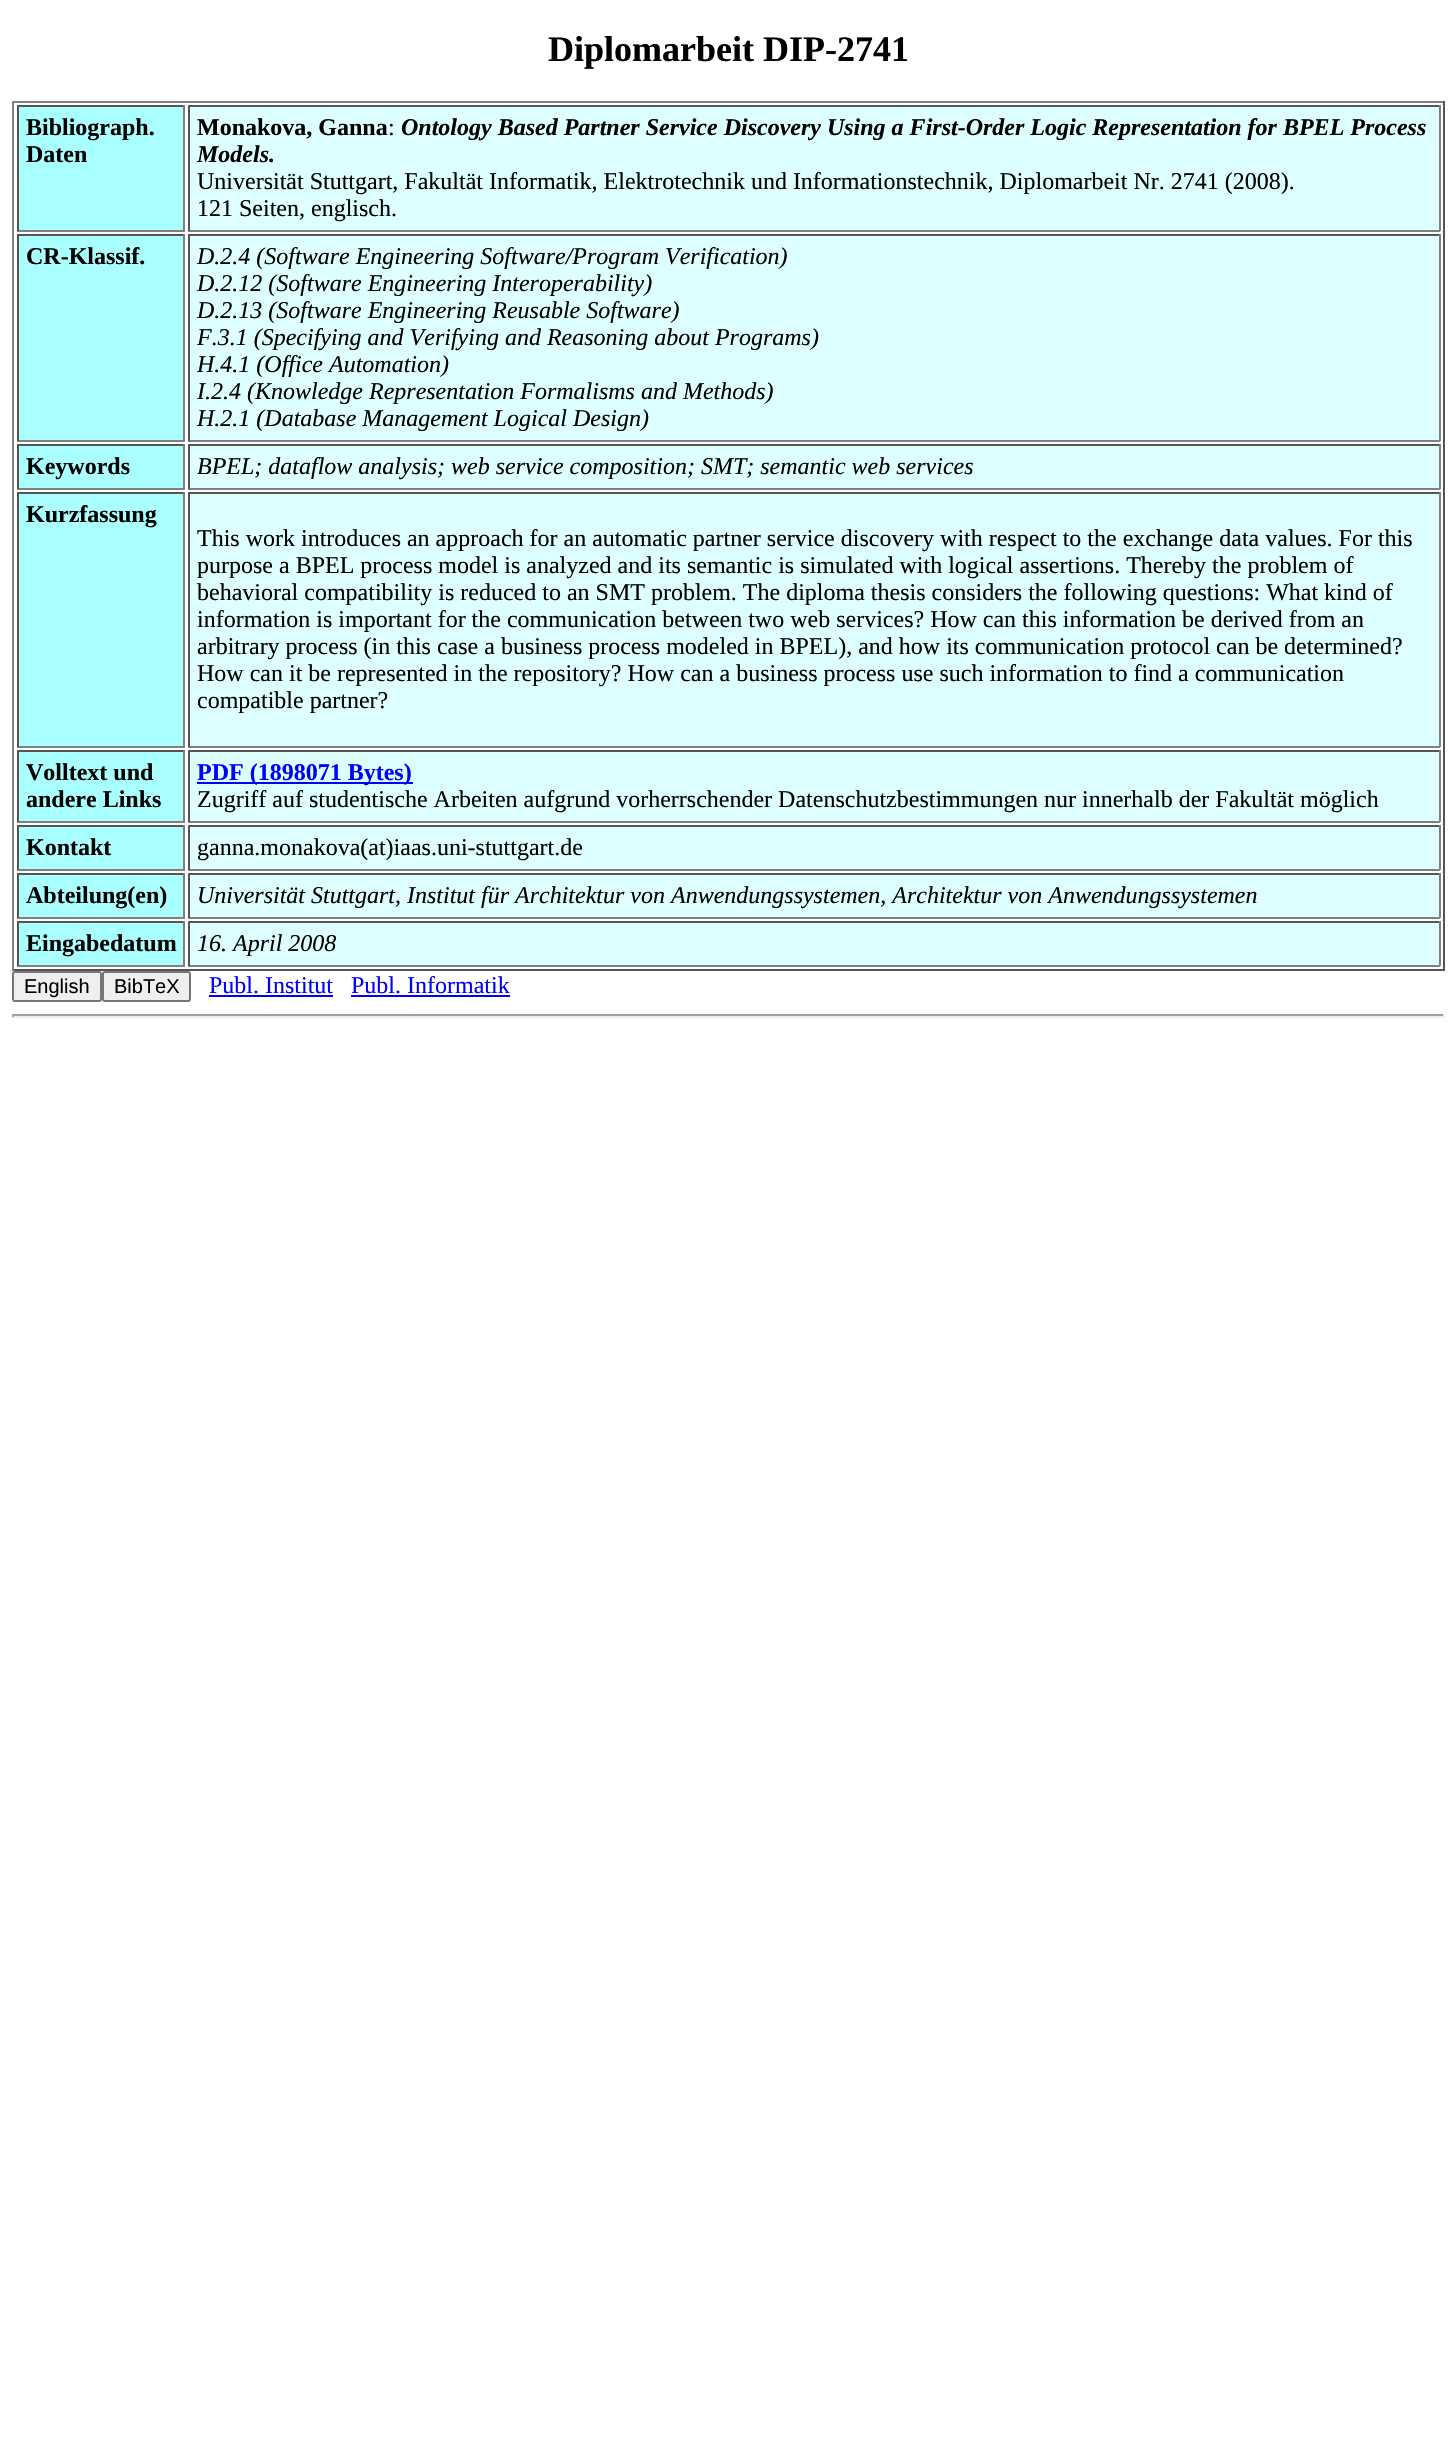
void draw(SkCanvas* canvas) {
	SkPaint fill;
	fill.setAntiAlias(true);
	auto makeFont = [&](const char* family, int weight, float size, bool italic = false) {
		SkFontStyle style(weight, SkFontStyle::kNormal_Width,
			italic ? SkFontStyle::kItalic_Slant : SkFontStyle::kUpright_Slant);
		SkFont result(fontMgr->matchFamilyStyle(family, style), size);
		result.setSubpixel(true);
		return result;
	};
	auto text = [&](const char* s, float x, float y, const SkFont& font) {
		canvas->drawString(s, x, y, font, fill);
	};
	auto box = [&](float l, float t, float r, float b) {
		canvas->drawRect(SkRect::MakeLTRB(l, t, r, b), fill);
	};
	canvas->clear(0xFFFFFFFF);
	fill.setColor(0xFF808080);
	box(12, 101, 1445, 103);
	fill.setColor(0xFF555555);
	box(1443, 101, 1445, 971);
	box(12, 969, 1445, 971);
	fill.setColor(0xFF808080);
	box(12, 101, 14, 971);
	fill.setColor(0xFFAAFFFF);
	box(19, 107, 183, 230);
	fill.setColor(0xFF555555);
	box(17, 105, 185, 107);
	fill.setColor(0xFF808080);
	box(183, 105, 185, 231);
	box(17, 230, 185, 232);
	fill.setColor(0xFF555555);
	box(17, 105, 19, 231);
	fill.setColor(0xFFDDFFFF);
	box(190, 107, 1439, 230);
	fill.setColor(0xFF555555);
	box(188, 105, 1440, 107);
	fill.setColor(0xFF808080);
	box(1439, 105, 1441, 231);
	box(188, 230, 1440, 232);
	fill.setColor(0xFF555555);
	box(188, 105, 190, 231);
	fill.setColor(0xFFAAFFFF);
	box(19, 236, 183, 440);
	fill.setColor(0xFF555555);
	box(17, 234, 185, 236);
	fill.setColor(0xFF808080);
	box(183, 234, 185, 441);
	box(17, 440, 185, 442);
	fill.setColor(0xFF555555);
	box(17, 234, 19, 441);
	fill.setColor(0xFFDDFFFF);
	box(190, 236, 1439, 440);
	fill.setColor(0xFF555555);
	box(188, 234, 1440, 236);
	fill.setColor(0xFF808080);
	box(1439, 234, 1441, 441);
	box(188, 440, 1440, 442);
	fill.setColor(0xFF555555);
	box(188, 234, 190, 441);
	fill.setColor(0xFFAAFFFF);
	box(19, 446, 183, 488);
	fill.setColor(0xFF555555);
	box(17, 444, 185, 446);
	fill.setColor(0xFF808080);
	box(183, 444, 185, 489);
	box(17, 488, 185, 490);
	fill.setColor(0xFF555555);
	box(17, 444, 19, 489);
	fill.setColor(0xFFDDFFFF);
	box(190, 446, 1439, 488);
	fill.setColor(0xFF555555);
	box(188, 444, 1440, 446);
	fill.setColor(0xFF808080);
	box(1439, 444, 1441, 489);
	box(188, 488, 1440, 490);
	fill.setColor(0xFF555555);
	box(188, 444, 190, 489);
	fill.setColor(0xFFAAFFFF);
	box(19, 494, 183, 746);
	fill.setColor(0xFF555555);
	box(17, 492, 185, 494);
	fill.setColor(0xFF808080);
	box(183, 492, 185, 747);
	box(17, 746, 185, 748);
	fill.setColor(0xFF555555);
	box(17, 492, 19, 747);
	fill.setColor(0xFFDDFFFF);
	box(190, 494, 1439, 746);
	fill.setColor(0xFF555555);
	box(188, 492, 1440, 494);
	fill.setColor(0xFF808080);
	box(1439, 492, 1441, 747);
	box(188, 746, 1440, 748);
	fill.setColor(0xFF555555);
	box(188, 492, 190, 747);
	fill.setColor(0xFFAAFFFF);
	box(19, 752, 183, 821);
	fill.setColor(0xFF555555);
	box(17, 750, 185, 752);
	fill.setColor(0xFF808080);
	box(183, 750, 185, 822);
	box(17, 821, 185, 823);
	fill.setColor(0xFF555555);
	box(17, 750, 19, 822);
	fill.setColor(0xFFDDFFFF);
	box(190, 752, 1439, 821);
	fill.setColor(0xFF555555);
	box(188, 750, 1440, 752);
	fill.setColor(0xFF808080);
	box(1439, 750, 1441, 822);
	box(188, 821, 1440, 823);
	fill.setColor(0xFF555555);
	box(188, 750, 190, 822);
	fill.setColor(0xFF0000FF);
	box(197, 782, 413, 784);
	fill.setColor(0xFFAAFFFF);
	box(19, 827, 183, 869);
	fill.setColor(0xFF555555);
	box(17, 825, 185, 827);
	fill.setColor(0xFF808080);
	box(183, 825, 185, 870);
	box(17, 869, 185, 871);
	fill.setColor(0xFF555555);
	box(17, 825, 19, 870);
	fill.setColor(0xFFDDFFFF);
	box(190, 827, 1439, 869);
	fill.setColor(0xFF555555);
	box(188, 825, 1440, 827);
	fill.setColor(0xFF808080);
	box(1439, 825, 1441, 870);
	box(188, 869, 1440, 871);
	fill.setColor(0xFF555555);
	box(188, 825, 190, 870);
	fill.setColor(0xFFAAFFFF);
	box(19, 875, 183, 917);
	fill.setColor(0xFF555555);
	box(17, 873, 185, 875);
	fill.setColor(0xFF808080);
	box(183, 873, 185, 918);
	box(17, 917, 185, 919);
	fill.setColor(0xFF555555);
	box(17, 873, 19, 918);
	fill.setColor(0xFFDDFFFF);
	box(190, 875, 1439, 917);
	fill.setColor(0xFF555555);
	box(188, 873, 1440, 875);
	fill.setColor(0xFF808080);
	box(1439, 873, 1441, 918);
	box(188, 917, 1440, 919);
	fill.setColor(0xFF555555);
	box(188, 873, 190, 918);
	fill.setColor(0xFFAAFFFF);
	box(19, 923, 183, 965);
	fill.setColor(0xFF555555);
	box(17, 921, 185, 923);
	fill.setColor(0xFF808080);
	box(183, 921, 185, 966);
	box(17, 965, 185, 967);
	fill.setColor(0xFF555555);
	box(17, 921, 19, 966);
	fill.setColor(0xFFDDFFFF);
	box(190, 923, 1439, 965);
	fill.setColor(0xFF555555);
	box(188, 921, 1440, 923);
	fill.setColor(0xFF808080);
	box(1439, 921, 1441, 966);
	box(188, 965, 1440, 967);
	fill.setColor(0xFF555555);
	box(188, 921, 190, 966);
	fill.setColor(0xFFEFEFEF);
	canvas->drawRoundRect(SkRect::MakeLTRB(13, 972, 101, 1001), 2, 2, fill);
	fill.setStyle(SkPaint::kStroke_Style);
	fill.setStrokeWidth(2);
	fill.setColor(0xFF767676);
	canvas->drawRoundRect(SkRect::MakeLTRB(13, 972, 101, 1001), 2, 2, fill);
	fill.setStyle(SkPaint::kFill_Style);
	fill.setColor(0xFFEFEFEF);
	canvas->drawRoundRect(SkRect::MakeLTRB(103, 972, 190, 1001), 2, 2, fill);
	fill.setStyle(SkPaint::kStroke_Style);
	fill.setColor(0xFF767676);
	canvas->drawRoundRect(SkRect::MakeLTRB(103, 972, 190, 1001), 2, 2, fill);
	fill.setStyle(SkPaint::kFill_Style);
	fill.setColor(0xFF0000FF);
	box(209, 995, 333, 997);
	box(351, 995, 510, 997);
	fill.setColor(0xFF9F9F9F);
	box(12, 1014, 1445, 1016);
	fill.setColor(0xFFEEEEEE);
	box(1443, 1014, 1445, 1017);
	box(12, 1016, 1445, 1018);
	fill.setColor(0xFF9F9F9F);
	box(12, 1014, 14, 1017);
	auto font1 = makeFont("Liberation Serif", 700, 36);
	fill.setColor(0xFF000000);
	text("Diplomarbeit DIP-2741", 548, 61, font1);
	auto font2 = makeFont("Liberation Serif", 700, 24);
	text("Bibliograph.", 26, 135, font2);
	text("Daten", 26, 162, font2);
	text("Monakova, Ganna", 197, 135, font2);
	auto font3 = makeFont("Liberation Serif", 400, 24);
	text(":", 388, 135, font3);
	auto font4 = makeFont("Liberation Serif", 700, 24, true);
	text("Ontology Based Partner Service Discovery Using a First-Order Logic Representation for BPEL Process", 401, 135, font4);
	text("Models.", 197, 162, font4);
	text("Universität Stuttgart, Fakultät Informatik, Elektrotechnik und Informationstechnik, Diplomarbeit Nr. 2741 (2008).", 197, 189, font3);
	text("121 Seiten, englisch.", 197, 216, font3);
	text("CR-Klassif.", 26, 264, font2);
	auto font5 = makeFont("Liberation Serif", 400, 24, true);
	text("D.2.4 (Software Engineering Software/Program Verification)", 197, 264, font5);
	text("D.2.12 (Software Engineering Interoperability)", 197, 291, font5);
	text("D.2.13 (Software Engineering Reusable Software)", 197, 318, font5);
	text("F.3.1 (Specifying and Verifying and Reasoning about Programs)", 197, 345, font5);
	text("H.4.1 (Office Automation)", 197, 372, font5);
	text("I.2.4 (Knowledge Representation Formalisms and Methods)", 197, 399, font5);
	text("H.2.1 (Database Management Logical Design)", 197, 426, font5);
	text("Keywords", 26, 474, font2);
	text("BPEL; dataflow analysis; web service composition; SMT; semantic web services", 197, 474, font5);
	text("Kurzfassung", 26, 522, font2);
	text("This work introduces an approach for an automatic partner service discovery with respect to the exchange data values. For this", 197, 546, font3);
	text("purpose a BPEL process model is analyzed and its semantic is simulated with logical assertions. Thereby the problem of", 197, 573, font3);
	text("behavioral compatibility is reduced to an SMT problem. The diploma thesis considers the following questions: What kind of", 197, 600, font3);
	text("information is important for the communication between two web services? How can this information be derived from an", 197, 627, font3);
	text("arbitrary process (in this case a business process modeled in BPEL), and how its communication protocol can be determined?", 197, 654, font3);
	text("How can it be represented in the repository? How can a business process use such information to find a communication", 197, 681, font3);
	text("compatible partner?", 197, 708, font3);
	text("Volltext und", 26, 780, font2);
	text("andere Links", 26, 807, font2);
	fill.setColor(0xFF0000FF);
	text("PDF (1898071 Bytes)", 197, 780, font2);
	fill.setColor(0xFF000000);
	text("Zugriff auf studentische Arbeiten aufgrund vorherrschender Datenschutzbestimmungen nur innerhalb der Fakultät möglich", 197, 807, font3);
	text("Kontakt", 26, 855, font2);
	text("ganna.monakova(at)iaas.uni-stuttgart.de", 197, 855, font3);
	text("Abteilung(en)", 26, 903, font2);
	text("Universität Stuttgart, Institut für Architektur von Anwendungssystemen, Architektur von Anwendungssystemen", 197, 903, font5);
	text("Eingabedatum", 26, 951, font2);
	text("16. April 2008", 197, 951, font5);
	auto font6 = makeFont("Liberation Sans", 400, 20);
	text("English", 24, 993, font6);
	text("BibTeX", 114, 993, font6);
	fill.setColor(0xFF0000FF);
	text("Publ. Institut", 209, 993, font3);
	text("Publ. Informatik", 351, 993, font3);
}
